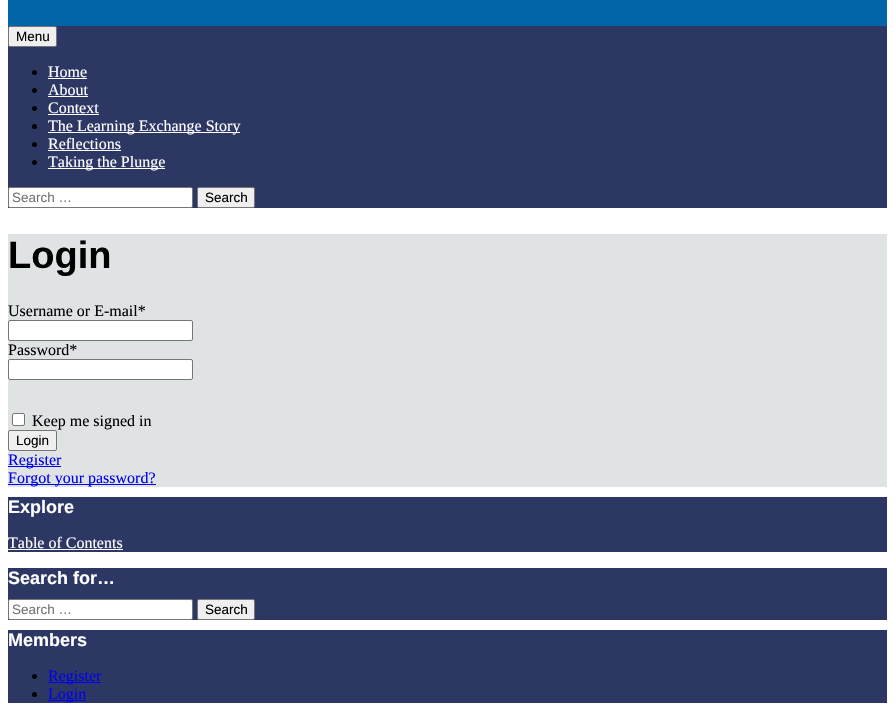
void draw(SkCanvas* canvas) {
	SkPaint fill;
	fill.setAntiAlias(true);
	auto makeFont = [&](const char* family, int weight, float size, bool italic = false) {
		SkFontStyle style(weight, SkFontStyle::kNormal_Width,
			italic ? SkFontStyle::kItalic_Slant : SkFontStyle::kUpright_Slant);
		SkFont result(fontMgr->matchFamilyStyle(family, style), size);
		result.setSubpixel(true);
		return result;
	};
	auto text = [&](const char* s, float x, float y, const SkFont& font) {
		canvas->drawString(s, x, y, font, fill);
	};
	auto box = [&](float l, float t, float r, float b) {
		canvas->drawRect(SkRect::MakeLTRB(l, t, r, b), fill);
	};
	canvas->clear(0xFFFFFFFF);
	fill.setColor(0xFF0164A7);
	box(8, 0, 887, 26);
	fill.setColor(0xFF2C3863);
	box(8, 26, 887, 208);
	fill.setColor(0xFFEFEFEF);
	canvas->drawRoundRect(SkRect::MakeLTRB(8.5f, 26.5f, 56.5f, 46.5f), 1.5f, 1.5f, fill);
	fill.setStyle(SkPaint::kStroke_Style);
	fill.setStrokeWidth(1);
	fill.setColor(0xFF767676);
	canvas->drawRoundRect(SkRect::MakeLTRB(8.5f, 26.5f, 56.5f, 46.5f), 1.5f, 1.5f, fill);
	fill.setStyle(SkPaint::kFill_Style);
	fill.setColor(0xFF000000);
	canvas->drawCircle(34.5f, 72.5f, 2.5f, fill);
	fill.setColor(0xFFFFFFFF);
	box(48, 78, 87, 79);
	fill.setColor(0xFF000000);
	canvas->drawCircle(34.5f, 90.5f, 2.5f, fill);
	fill.setColor(0xFFFFFFFF);
	box(48, 96, 88, 97);
	fill.setColor(0xFF000000);
	canvas->drawCircle(34.5f, 108.5f, 2.5f, fill);
	fill.setColor(0xFFFFFFFF);
	box(48, 114, 99, 115);
	fill.setColor(0xFF000000);
	canvas->drawCircle(34.5f, 126.5f, 2.5f, fill);
	fill.setColor(0xFFFFFFFF);
	box(48, 132, 240, 133);
	fill.setColor(0xFF000000);
	canvas->drawCircle(34.5f, 144.5f, 2.5f, fill);
	fill.setColor(0xFFFFFFFF);
	box(48, 150, 121, 151);
	fill.setColor(0xFF000000);
	canvas->drawCircle(34.5f, 162.5f, 2.5f, fill);
	fill.setColor(0xFFFFFFFF);
	box(48, 168, 165, 169);
	canvas->drawRoundRect(SkRect::MakeLTRB(8.5f, 187.5f, 192.5f, 207.5f), 1.5f, 1.5f, fill);
	fill.setStyle(SkPaint::kStroke_Style);
	fill.setColor(0xFF767676);
	canvas->drawRoundRect(SkRect::MakeLTRB(8.5f, 187.5f, 192.5f, 207.5f), 1.5f, 1.5f, fill);
	fill.setStyle(SkPaint::kFill_Style);
	fill.setColor(0xFFEFEFEF);
	canvas->drawRoundRect(SkRect::MakeLTRB(197.5f, 187.5f, 254.5f, 207.5f), 1.5f, 1.5f, fill);
	fill.setStyle(SkPaint::kStroke_Style);
	fill.setColor(0xFF767676);
	canvas->drawRoundRect(SkRect::MakeLTRB(197.5f, 187.5f, 254.5f, 207.5f), 1.5f, 1.5f, fill);
	fill.setStyle(SkPaint::kFill_Style);
	fill.setColor(0xFFDFE3E4);
	box(8, 234, 887, 487);
	fill.setColor(0xFFFFFFFF);
	canvas->drawRoundRect(SkRect::MakeLTRB(8.5f, 320.5f, 192.5f, 340.5f), 1.5f, 1.5f, fill);
	fill.setStyle(SkPaint::kStroke_Style);
	fill.setColor(0xFF767676);
	canvas->drawRoundRect(SkRect::MakeLTRB(8.5f, 320.5f, 192.5f, 340.5f), 1.5f, 1.5f, fill);
	fill.setStyle(SkPaint::kFill_Style);
	fill.setColor(0xFFFFFFFF);
	canvas->drawRoundRect(SkRect::MakeLTRB(8.5f, 359.5f, 192.5f, 379.5f), 1.5f, 1.5f, fill);
	fill.setStyle(SkPaint::kStroke_Style);
	fill.setColor(0xFF767676);
	canvas->drawRoundRect(SkRect::MakeLTRB(8.5f, 359.5f, 192.5f, 379.5f), 1.5f, 1.5f, fill);
	fill.setStyle(SkPaint::kFill_Style);
	fill.setColor(0xFFFFFFFF);
	canvas->drawRoundRect(SkRect::MakeLTRB(12.5f, 413.5f, 24.5f, 425.5f), 1.5f, 1.5f, fill);
	fill.setStyle(SkPaint::kStroke_Style);
	fill.setColor(0xFF767676);
	canvas->drawRoundRect(SkRect::MakeLTRB(12.5f, 413.5f, 24.5f, 425.5f), 1.5f, 1.5f, fill);
	fill.setStyle(SkPaint::kFill_Style);
	fill.setColor(0xFFEFEFEF);
	canvas->drawRoundRect(SkRect::MakeLTRB(8.5f, 430.5f, 56.5f, 450.5f), 1.5f, 1.5f, fill);
	fill.setStyle(SkPaint::kStroke_Style);
	fill.setColor(0xFF767676);
	canvas->drawRoundRect(SkRect::MakeLTRB(8.5f, 430.5f, 56.5f, 450.5f), 1.5f, 1.5f, fill);
	fill.setStyle(SkPaint::kFill_Style);
	fill.setColor(0xFF0000EE);
	box(8, 466, 61, 467);
	box(8, 484, 156, 485);
	fill.setColor(0xFF2C3863);
	box(8, 497, 887, 552);
	fill.setColor(0xFFFFFFFF);
	box(8, 549, 123, 550);
	fill.setColor(0xFF2C3863);
	box(8, 568, 887, 620);
	fill.setColor(0xFFFFFFFF);
	canvas->drawRoundRect(SkRect::MakeLTRB(8.5f, 599.5f, 192.5f, 619.5f), 1.5f, 1.5f, fill);
	fill.setStyle(SkPaint::kStroke_Style);
	fill.setColor(0xFF767676);
	canvas->drawRoundRect(SkRect::MakeLTRB(8.5f, 599.5f, 192.5f, 619.5f), 1.5f, 1.5f, fill);
	fill.setStyle(SkPaint::kFill_Style);
	fill.setColor(0xFFEFEFEF);
	canvas->drawRoundRect(SkRect::MakeLTRB(197.5f, 599.5f, 254.5f, 619.5f), 1.5f, 1.5f, fill);
	fill.setStyle(SkPaint::kStroke_Style);
	fill.setColor(0xFF767676);
	canvas->drawRoundRect(SkRect::MakeLTRB(197.5f, 599.5f, 254.5f, 619.5f), 1.5f, 1.5f, fill);
	fill.setStyle(SkPaint::kFill_Style);
	fill.setColor(0xFF2C3863);
	box(8, 630, 887, 703);
	fill.setColor(0xFF000000);
	canvas->drawCircle(34.5f, 676.5f, 2.5f, fill);
	fill.setColor(0xFF0000EE);
	box(48, 682, 101, 683);
	fill.setColor(0xFF000000);
	canvas->drawCircle(34.5f, 694.5f, 2.5f, fill);
	fill.setColor(0xFF0000EE);
	box(48, 700, 86, 701);
	auto font1 = makeFont("Liberation Sans", 400, 13.5f);
	fill.setColor(0xFF000000);
	text("Menu", 16, 41, font1);
	auto font2 = makeFont("Liberation Serif", 400, 16);
	fill.setColor(0xFFFFFFFF);
	text("Home", 48, 77, font2);
	text("About", 48, 95, font2);
	text("Context", 48, 113, font2);
	text("The Learning Exchange Story", 48, 131, font2);
	text("Reflections", 48, 149, font2);
	text("Taking the Plunge", 48, 167, font2);
	fill.setColor(0xFF757575);
	text("Search …", 12, 202, font1);
	fill.setColor(0xFF000000);
	text("Search", 205, 202, font1);
	auto font3 = makeFont("Liberation Sans", 700, 38);
	text("Login", 8, 268, font3);
	text("Username or E-mail*", 8, 316, font2);
	text("Password*", 8, 355, font2);
	text("Keep me signed in", 32, 426, font2);
	text("Login", 16, 445, font1);
	fill.setColor(0xFF0000EE);
	text("Register", 8, 465, font2);
	text("Forgot your password?", 8, 483, font2);
	auto font4 = makeFont("Liberation Sans", 700, 18);
	fill.setColor(0xFFFFFFFF);
	text("Explore", 8, 513, font4);
	text("Table of Contents", 8, 548, font2);
	text("Search for…", 8, 584, font4);
	fill.setColor(0xFF757575);
	text("Search …", 12, 614, font1);
	fill.setColor(0xFF000000);
	text("Search", 205, 614, font1);
	fill.setColor(0xFFFFFFFF);
	text("Members", 8, 646, font4);
	fill.setColor(0xFF0000EE);
	text("Register", 48, 681, font2);
	text("Login", 48, 699, font2);
}
